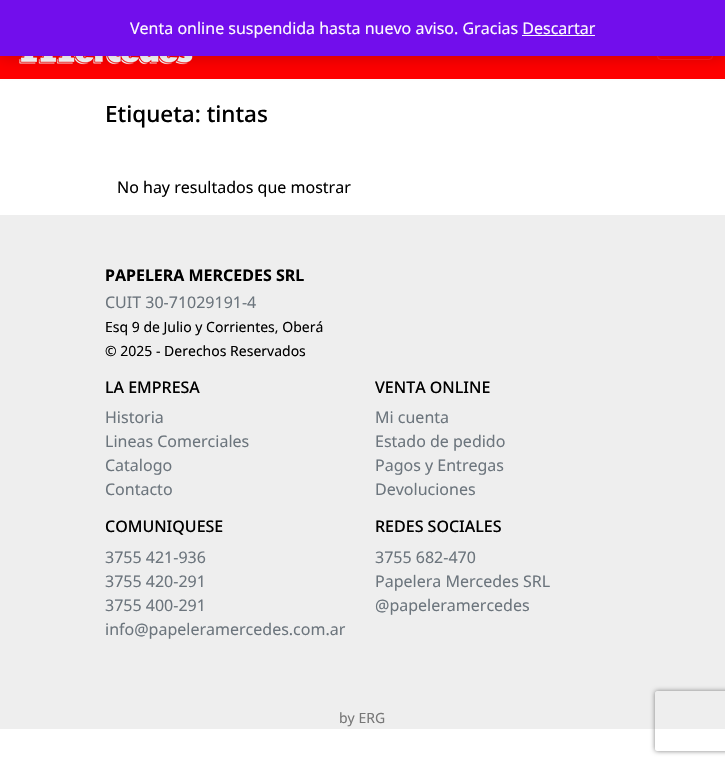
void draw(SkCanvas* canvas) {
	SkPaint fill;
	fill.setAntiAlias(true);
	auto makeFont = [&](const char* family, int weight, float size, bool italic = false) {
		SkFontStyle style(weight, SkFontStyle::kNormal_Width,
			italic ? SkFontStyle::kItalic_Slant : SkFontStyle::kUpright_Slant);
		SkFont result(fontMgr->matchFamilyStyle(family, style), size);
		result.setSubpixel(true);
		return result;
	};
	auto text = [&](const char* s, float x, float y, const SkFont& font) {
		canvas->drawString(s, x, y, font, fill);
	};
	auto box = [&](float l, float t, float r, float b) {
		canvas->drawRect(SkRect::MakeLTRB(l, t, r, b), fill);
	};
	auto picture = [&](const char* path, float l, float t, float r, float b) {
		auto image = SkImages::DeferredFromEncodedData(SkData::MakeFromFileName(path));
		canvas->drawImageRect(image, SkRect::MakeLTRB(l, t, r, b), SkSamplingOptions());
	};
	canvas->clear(0xFFFFFFFF);
	fill.setColor(0xFFFF0000);
	box(0, 56, 725, 79);
	picture("image0.png", 19, 56, 193, 65);
	fill.setStyle(SkPaint::kStroke_Style);
	fill.setStrokeWidth(1);
	fill.setColor(0xFFFF1A1A);
	canvas->drawRoundRect(SkRect::MakeLTRB(657.5f, 20.5f, 712.5f, 59.5f), 3.5f, 3.5f, fill);
	fill.setStyle(SkPaint::kFill_Style);
	fill.setColor(0x33000000);
	fill.setMaskFilter(SkMaskFilter::MakeBlur(kNormal_SkBlurStyle, 8));
	canvas->drawRect(SkRect::MakeLTRB(0, 1, 725, 57), fill);
	fill.setMaskFilter(nullptr);
	fill.setColor(0xFF720EEC);
	box(0, 0, 725, 56);
	fill.setColor(0xFFFCFBFE);
	box(522, 35, 595, 36);
	fill.setColor(0xFFEEEEEE);
	box(0, 215, 725, 729);
	canvas->save();
	canvas->clipPath(SkPathBuilder(SkPathFillType::kEvenOdd).moveTo(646, 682).lineTo(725, 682).lineTo(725, 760).lineTo(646, 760).close().moveTo(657, 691).lineTo(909, 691).cubicTo(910, 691, 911, 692, 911, 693).lineTo(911, 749).cubicTo(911, 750, 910, 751, 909, 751).lineTo(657, 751).cubicTo(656, 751, 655, 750, 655, 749).lineTo(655, 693).cubicTo(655, 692, 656, 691, 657, 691).close().detach(), true);
	fill.setColor(0xFF808080);
	fill.setMaskFilter(SkMaskFilter::MakeBlur(kNormal_SkBlurStyle, 2.5f));
	canvas->drawRoundRect(SkRect::MakeLTRB(655, 691, 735, 751), 2, 2, fill);
	fill.setMaskFilter(nullptr);
	canvas->restore();
	auto font1 = makeFont("Noto Sans", 400, 16);
	fill.setColor(0xFFFCFBFE);
	text("Venta online suspendida hasta nuevo aviso. Gracias Descartar", 130, 34, font1);
	auto font2 = makeFont("Noto Sans", 500, 22.5f);
	fill.setColor(0xFF000000);
	text("Etiqueta: tintas", 105, 122, font2);
	text("No hay resultados que mostrar", 117, 193, font1);
	auto font3 = makeFont("Noto Sans", 700, 16);
	text("PAPELERA MERCEDES SRL", 105, 281, font3);
	fill.setColor(0xFF6C757D);
	text("CUIT 30-71029191-4", 105, 308, font1);
	auto font4 = makeFont("Noto Sans", 400, 14);
	fill.setColor(0xFF000000);
	text("Esq 9 de Julio y Corrientes, Oberá", 105, 332, font4);
	text("© 2025 - Derechos Reservados", 105, 356, font4);
	auto font5 = makeFont("Noto Sans", 500, 16);
	text("LA EMPRESA", 105, 393, font5);
	fill.setColor(0xFF6C757D);
	text("Historia", 105, 423, font1);
	text("Lineas Comerciales", 105, 447, font1);
	text("Catalogo", 105, 471, font1);
	text("Contacto", 105, 495, font1);
	fill.setColor(0xFF000000);
	text("VENTA ONLINE", 375, 393, font5);
	fill.setColor(0xFF6C757D);
	text("Mi cuenta", 375, 423, font1);
	text("Estado de pedido", 375, 447, font1);
	text("Pagos y Entregas", 375, 471, font1);
	text("Devoluciones", 375, 495, font1);
	fill.setColor(0xFF000000);
	text("COMUNIQUESE", 105, 532, font5);
	fill.setColor(0xFF6C757D);
	text("3755 421-936", 105, 563, font1);
	text("3755 420-291", 105, 587, font1);
	text("3755 400-291", 105, 611, font1);
	text("info@papeleramercedes.com.ar", 105, 635, font1);
	fill.setColor(0xFF000000);
	text("REDES SOCIALES", 375, 532, font5);
	fill.setColor(0xFF6C757D);
	text("3755 682-470", 375, 563, font1);
	text("Papelera Mercedes SRL", 375, 587, font1);
	text("@papeleramercedes", 375, 611, font1);
	fill.setColor(0xFF777777);
	text("by ERG", 339, 723, font4);
}
